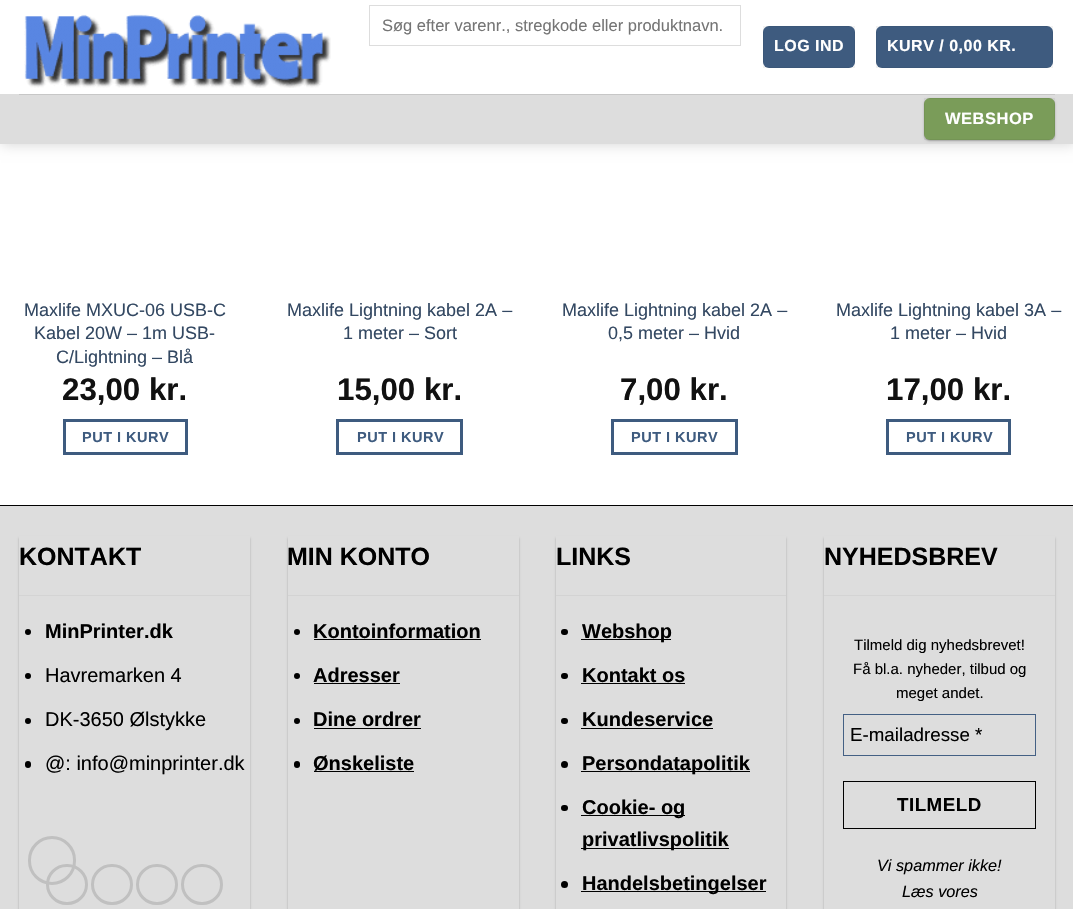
void draw(SkCanvas* canvas) {
	SkPaint fill;
	fill.setAntiAlias(true);
	auto makeFont = [&](const char* family, int weight, float size, bool italic = false) {
		SkFontStyle style(weight, SkFontStyle::kNormal_Width,
			italic ? SkFontStyle::kItalic_Slant : SkFontStyle::kUpright_Slant);
		SkFont result(fontMgr->matchFamilyStyle(family, style), size);
		result.setSubpixel(true);
		return result;
	};
	auto text = [&](const char* s, float x, float y, const SkFont& font) {
		canvas->drawString(s, x, y, font, fill);
	};
	auto spacedText = [&](const char* s, float x, float y, const SkFont& font, const SkPaint& ink, float letter, float word) {
		std::vector<SkGlyphID> glyphs(font.countText(s, strlen(s), SkTextEncoding::kUTF8));
		std::vector<float> xs(glyphs.size());
		font.textToGlyphs(s, strlen(s), SkTextEncoding::kUTF8, glyphs);
		font.getXPos(glyphs, xs, x);
		float extra = 0;
		for (size_t i = 0; i < glyphs.size(); i++) {
			xs[i] += extra;
			extra += letter + word * (glyphs[i] == font.unicharToGlyph(' '));
		}
		canvas->drawTextBlob(SkTextBlob::MakeFromPosHGlyphs(glyphs, xs, y, font), 0, 0, ink);
	};
	auto box = [&](float l, float t, float r, float b) {
		canvas->drawRect(SkRect::MakeLTRB(l, t, r, b), fill);
	};
	auto roundBox = [&](float l, float t, float r, float b, float radius) {
		canvas->drawRoundRect(SkRect::MakeLTRB(l, t, r, b), radius, radius, fill);
	};
	auto picture = [&](const char* path, float l, float t, float r, float b) {
		auto image = SkImages::DeferredFromEncodedData(SkData::MakeFromFileName(path));
		canvas->drawImageRect(image, SkRect::MakeLTRB(l, t, r, b), SkSamplingOptions());
	};
	canvas->clear(0xFFFFFFFF);
	fill.setColor(0x26000000);
	fill.setMaskFilter(SkMaskFilter::MakeBlur(kNormal_SkBlurStyle, 6));
	canvas->drawRect(SkRect::MakeLTRB(1, 1, 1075, 145), fill);
	fill.setMaskFilter(nullptr);
	fill.setColor(0xFFFFFFFF);
	box(0, 0, 1073, 94);
	picture("image0.png", 24, 14, 331, 88);
	fill.setStyle(SkPaint::kStroke_Style);
	fill.setStrokeWidth(1);
	fill.setColor(0xFFDDDDDD);
	canvas->drawRect(SkRect::MakeLTRB(369.5f, 5.5f, 740.5f, 45.5f), fill);
	fill.setStyle(SkPaint::kFill_Style);
	fill.setColor(0xFF3E5B7F);
	roundBox(763, 26, 855, 68, 6);
	fill.setStyle(SkPaint::kStroke_Style);
	fill.setColor(0x0D000000);
	canvas->drawRect(SkRect::MakeLTRB(763.5f, 26.5f, 854.5f, 67.5f), fill);
	fill.setStyle(SkPaint::kFill_Style);
	fill.setColor(0xFF3E5B7F);
	roundBox(876, 26, 1053, 68, 6);
	fill.setStyle(SkPaint::kStroke_Style);
	fill.setColor(0x0D000000);
	canvas->drawRect(SkRect::MakeLTRB(876.5f, 26.5f, 1052.5f, 67.5f), fill);
	fill.setStyle(SkPaint::kFill_Style);
	fill.setColor(0xFFDDDDDD);
	box(0, 94, 1073, 144);
	fill.setColor(0x1F000000);
	fill.setMaskFilter(SkMaskFilter::MakeBlur(kNormal_SkBlurStyle, 2));
	canvas->drawRoundRect(SkRect::MakeLTRB(926, 101, 1053, 139), 4, 4, fill);
	fill.setMaskFilter(nullptr);
	fill.setColor(0xFFC7C7C7);
	box(19, 94, 1055, 95);
	fill.setColor(0x3D000000);
	fill.setMaskFilter(SkMaskFilter::MakeBlur(kNormal_SkBlurStyle, 1));
	canvas->drawRoundRect(SkRect::MakeLTRB(924, 99, 1055, 141), 6, 6, fill);
	fill.setMaskFilter(nullptr);
	fill.setColor(0xFF7A9C59);
	roundBox(924, 98, 1055, 140, 6);
	fill.setStyle(SkPaint::kStroke_Style);
	fill.setColor(0x0D000000);
	canvas->drawRect(SkRect::MakeLTRB(924.5f, 98.5f, 1054.5f, 139.5f), fill);
	fill.setStrokeWidth(3);
	fill.setColor(0xFF3E5B7F);
	canvas->drawRect(SkRect::MakeLTRB(64.5f, 420.5f, 186.5f, 453.5f), fill);
	canvas->drawRect(SkRect::MakeLTRB(337.5f, 420.5f, 461.5f, 453.5f), fill);
	canvas->drawRect(SkRect::MakeLTRB(612.5f, 420.5f, 736.5f, 453.5f), fill);
	canvas->drawRect(SkRect::MakeLTRB(887.5f, 420.5f, 1009.5f, 453.5f), fill);
	fill.setStyle(SkPaint::kFill_Style);
	fill.setColor(0xFFDDDDDD);
	box(0, 506, 1073, 909);
	fill.setColor(0xFF000000);
	box(0, 505, 1073, 506);
	canvas->save();
	canvas->clipPath(SkPathBuilder(SkPathFillType::kEvenOdd).moveTo(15, 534).lineTo(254, 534).lineTo(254, 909).lineTo(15, 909).close().moveTo(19, 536).lineTo(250, 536).lineTo(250, 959).lineTo(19, 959).close().detach(), true);
	fill.setColor(0x3D000000);
	fill.setMaskFilter(SkMaskFilter::MakeBlur(kNormal_SkBlurStyle, 1));
	canvas->drawRect(SkRect::MakeLTRB(19, 538, 250, 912), fill);
	fill.setMaskFilter(nullptr);
	canvas->restore();
	fill.setColor(0xFFD4D4D4);
	box(19, 595, 250, 596);
	fill.setColor(0xFF000000);
	canvas->drawCircle(28, 632, 3, fill);
	canvas->drawCircle(28, 676, 3, fill);
	canvas->drawCircle(28, 721, 3, fill);
	roundBox(25, 761, 31, 768, 3);
	fill.setStyle(SkPaint::kStroke_Style);
	fill.setColor(0xFFC0C0C0);
	canvas->drawRoundRect(SkRect::MakeLTRB(47.5f, 865.5f, 86.5f, 903.5f), 19, 19, fill);
	canvas->drawRoundRect(SkRect::MakeLTRB(92.5f, 865.5f, 131.5f, 903.5f), 19, 19, fill);
	canvas->drawRoundRect(SkRect::MakeLTRB(137.5f, 865.5f, 176.5f, 903.5f), 19, 19, fill);
	canvas->drawRoundRect(SkRect::MakeLTRB(182.5f, 865.5f, 221.5f, 903.5f), 19, 19, fill);
	canvas->save();
	canvas->clipPath(SkPathBuilder(SkPathFillType::kEvenOdd).moveTo(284, 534).lineTo(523, 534).lineTo(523, 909).lineTo(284, 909).close().moveTo(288, 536).lineTo(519, 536).lineTo(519, 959).lineTo(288, 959).close().detach(), true);
	fill.setStyle(SkPaint::kFill_Style);
	fill.setColor(0x3D000000);
	fill.setMaskFilter(SkMaskFilter::MakeBlur(kNormal_SkBlurStyle, 1));
	canvas->drawRect(SkRect::MakeLTRB(288, 538, 519, 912), fill);
	fill.setMaskFilter(nullptr);
	canvas->restore();
	fill.setColor(0x1A808080);
	box(288, 595, 519, 596);
	fill.setColor(0xFF000000);
	canvas->drawCircle(297, 632, 3, fill);
	box(314, 639, 481, 640);
	canvas->drawCircle(297, 676, 3, fill);
	box(314, 683, 400, 684);
	canvas->drawCircle(297, 721, 3, fill);
	box(314, 728, 421, 729);
	roundBox(294, 761, 300, 768, 3);
	box(314, 771, 414, 772);
	canvas->save();
	canvas->clipPath(SkPathBuilder(SkPathFillType::kEvenOdd).moveTo(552, 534).lineTo(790, 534).lineTo(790, 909).lineTo(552, 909).close().moveTo(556, 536).lineTo(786, 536).lineTo(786, 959).lineTo(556, 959).close().detach(), true);
	fill.setColor(0x3D000000);
	fill.setMaskFilter(SkMaskFilter::MakeBlur(kNormal_SkBlurStyle, 1));
	canvas->drawRect(SkRect::MakeLTRB(556, 538, 786, 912), fill);
	fill.setMaskFilter(nullptr);
	canvas->restore();
	fill.setColor(0x1A808080);
	box(556, 595, 786, 596);
	fill.setColor(0xFF000000);
	roundBox(561, 629, 568, 635, 3);
	box(581, 639, 671, 640);
	roundBox(561, 673, 568, 679, 3);
	box(581, 683, 685, 684);
	roundBox(561, 718, 568, 724, 3);
	box(581, 728, 713, 729);
	canvas->drawCircle(564.5f, 764.5f, 3.5f, fill);
	box(581, 771, 750, 772);
	roundBox(561, 805, 568, 811, 3);
	box(581, 815, 685, 816);
	box(581, 848, 729, 849);
	canvas->drawCircle(564.5f, 884.5f, 3.5f, fill);
	box(581, 891, 766, 892);
	canvas->save();
	canvas->clipPath(SkPathBuilder(SkPathFillType::kEvenOdd).moveTo(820, 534).lineTo(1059, 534).lineTo(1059, 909).lineTo(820, 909).close().moveTo(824, 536).lineTo(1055, 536).lineTo(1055, 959).lineTo(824, 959).close().detach(), true);
	fill.setColor(0x3D000000);
	fill.setMaskFilter(SkMaskFilter::MakeBlur(kNormal_SkBlurStyle, 1));
	canvas->drawRect(SkRect::MakeLTRB(824, 538, 1055, 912), fill);
	fill.setMaskFilter(nullptr);
	canvas->restore();
	fill.setColor(0xFFD4D4D4);
	box(824, 595, 1055, 596);
	fill.setStyle(SkPaint::kStroke_Style);
	fill.setStrokeWidth(1);
	fill.setColor(0xFF446084);
	canvas->drawRect(SkRect::MakeLTRB(843.5f, 714.5f, 1035.5f, 755.5f), fill);
	fill.setColor(0xFF000000);
	canvas->drawRect(SkRect::MakeLTRB(843.5f, 781.5f, 1035.5f, 828.5f), fill);
	fill.setStrokeWidth(3);
	fill.setColor(0xFFC0C0C0);
	canvas->drawRoundRect(SkRect::MakeLTRB(29.5f, 837.5f, 74.5f, 883.5f), 22.5f, 22.5f, fill);
	auto font1 = makeFont("Liberation Sans", 400, 16.5f);
	fill.setStyle(SkPaint::kFill_Style);
	fill.setColor(0xFF757575);
	text("Søg efter varenr., stregkode eller produktnavn.", 382, 31, font1);
	auto font2 = makeFont("Liberation Sans", 700, 16);
	fill.setColor(0xFFFFFFFF);
	spacedText("LOG IND", 774, 51, font2, fill, 0.5f, 0);
	spacedText("KURV / 0,00 KR.", 887, 51, font2, fill, 0.5f, 0);
	auto font3 = makeFont("Liberation Sans", 700, 16.5f);
	spacedText("WEBSHOP", 945, 124, font3, fill, 0.5f, 0);
	auto font4 = makeFont("Liberation Sans", 400, 18);
	fill.setColor(0xFF334862);
	text("Maxlife MXUC-06 USB-C", 24, 316, font4);
	text("Kabel 20W – 1m USB-", 34, 339, font4);
	text("C/Lightning – Blå", 56, 363, font4);
	auto font5 = makeFont("Liberation Sans", 700, 31.25f);
	fill.setColor(0xFF111111);
	text("23,00 kr.", 62, 400, font5);
	auto font6 = makeFont("Liberation Sans", 700, 14.5f);
	fill.setColor(0xFF3E5B7F);
	spacedText("PUT I KURV", 82, 442, font6, fill, 0.5f, 0);
	fill.setColor(0xFF334862);
	text("Maxlife Lightning kabel 2A –", 287, 316, font4);
	text("1 meter – Sort", 343, 339, font4);
	fill.setColor(0xFF111111);
	text("15,00 kr.", 337, 400, font5);
	fill.setColor(0xFF3E5B7F);
	spacedText("PUT I KURV", 357, 442, font6, fill, 0.5f, 0);
	fill.setColor(0xFF334862);
	text("Maxlife Lightning kabel 2A –", 562, 316, font4);
	text("0,5 meter – Hvid", 608, 339, font4);
	fill.setColor(0xFF111111);
	text("7,00 kr.", 620, 400, font5);
	fill.setColor(0xFF3E5B7F);
	spacedText("PUT I KURV", 631, 442, font6, fill, 0.5f, 0);
	fill.setColor(0xFF334862);
	text("Maxlife Lightning kabel 3A –", 836, 316, font4);
	text("1 meter – Hvid", 890, 339, font4);
	fill.setColor(0xFF111111);
	text("17,00 kr.", 886, 400, font5);
	fill.setColor(0xFF3E5B7F);
	spacedText("PUT I KURV", 906, 442, font6, fill, 0.5f, 0);
	auto font7 = makeFont("Liberation Sans", 700, 25);
	fill.setColor(0xFF000000);
	text("KONTAKT", 19, 565, font7);
	auto font8 = makeFont("Liberation Sans", 700, 20);
	text("MinPrinter.dk", 45, 638, font8);
	auto font9 = makeFont("Liberation Sans", 400, 20);
	text("Havremarken 4", 45, 682, font9);
	text("DK-3650 Ølstykke", 45, 726, font9);
	text("@: info@minprinter.dk", 45, 770, font9);
	text("MIN KONTO", 287, 565, font7);
	text("Kontoinformation", 313, 638, font8);
	text("Adresser", 313, 682, font8);
	text("Dine ordrer", 313, 726, font8);
	text("Ønskeliste", 313, 770, font8);
	text("LINKS", 556, 565, font7);
	text("Webshop", 582, 638, font8);
	text("Kontakt os", 582, 682, font8);
	text("Kundeservice", 582, 726, font8);
	text("Persondatapolitik", 582, 770, font8);
	text("Cookie- og", 582, 814, font8);
	text("privatlivspolitik", 582, 846, font8);
	text("Handelsbetingelser", 582, 890, font8);
	text("NYHEDSBREV", 824, 565, font7);
	auto font10 = makeFont("Liberation Sans", 400, 15);
	text("Tilmeld dig nyhedsbrevet!", 854, 650, font10);
	text("Få bl.a. nyheder, tilbud og", 853, 674, font10);
	text("meget andet.", 896, 698, font10);
	auto font11 = makeFont("Liberation Sans", 400, 18.75f);
	text("E-mailadresse *", 850, 741, font11);
	auto font12 = makeFont("Liberation Sans", 700, 18.75f);
	spacedText("TILMELD", 897, 811, font12, fill, 0.5f, 0);
	auto font13 = makeFont("Liberation Sans", 400, 16.25f, true);
	text("Vi spammer ikke!", 877, 871, font13);
	text("Læs vores", 902, 897, font13);
}
